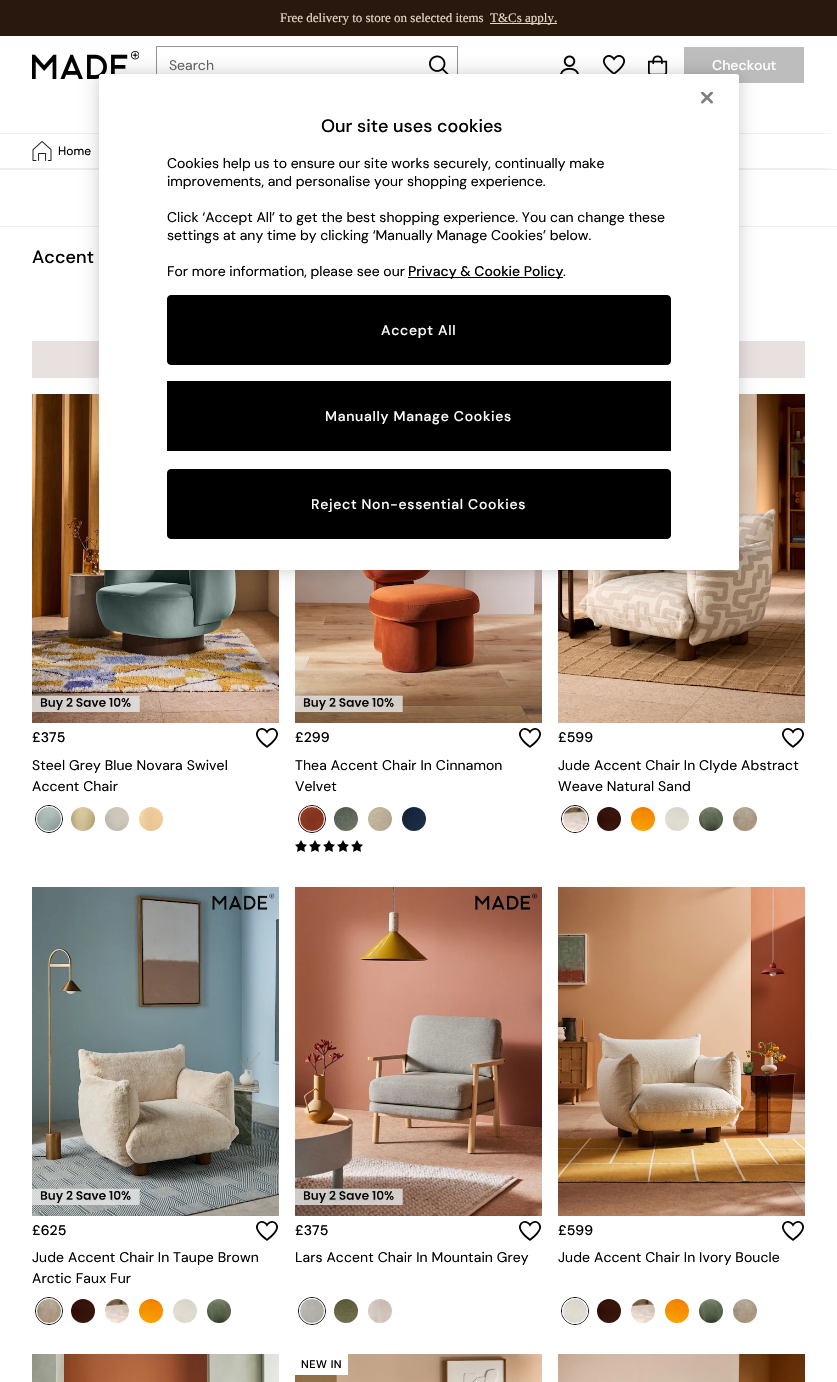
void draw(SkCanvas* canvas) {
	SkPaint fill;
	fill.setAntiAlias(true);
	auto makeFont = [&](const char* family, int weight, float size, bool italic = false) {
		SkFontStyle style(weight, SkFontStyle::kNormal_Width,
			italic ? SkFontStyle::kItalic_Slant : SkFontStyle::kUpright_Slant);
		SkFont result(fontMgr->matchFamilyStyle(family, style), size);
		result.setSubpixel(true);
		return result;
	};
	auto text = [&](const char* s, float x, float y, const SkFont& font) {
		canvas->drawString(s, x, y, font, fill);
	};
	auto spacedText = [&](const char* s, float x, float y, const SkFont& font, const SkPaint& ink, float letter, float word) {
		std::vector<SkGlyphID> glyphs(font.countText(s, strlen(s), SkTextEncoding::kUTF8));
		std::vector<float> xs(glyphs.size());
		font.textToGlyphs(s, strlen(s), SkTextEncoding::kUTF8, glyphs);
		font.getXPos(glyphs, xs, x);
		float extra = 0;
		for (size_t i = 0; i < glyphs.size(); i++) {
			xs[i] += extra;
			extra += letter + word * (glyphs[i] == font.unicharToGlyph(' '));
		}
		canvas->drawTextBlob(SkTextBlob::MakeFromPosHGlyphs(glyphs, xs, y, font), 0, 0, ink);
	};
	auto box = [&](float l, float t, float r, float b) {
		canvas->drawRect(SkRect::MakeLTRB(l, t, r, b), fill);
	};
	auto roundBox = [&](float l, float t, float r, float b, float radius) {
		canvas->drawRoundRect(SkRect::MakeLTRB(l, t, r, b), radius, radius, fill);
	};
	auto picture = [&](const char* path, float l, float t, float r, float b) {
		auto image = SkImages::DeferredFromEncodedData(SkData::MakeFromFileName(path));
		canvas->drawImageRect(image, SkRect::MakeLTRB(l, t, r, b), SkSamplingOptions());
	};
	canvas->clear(0xFFFFFFFF);
	fill.setColor(0xFF28180D);
	box(0, 0, 837, 36);
	fill.setColor(0xFFE2D7C6);
	box(490, 23, 557, 24);
	picture("image0.png", 32, 51, 139, 79);
	fill.setStyle(SkPaint::kStroke_Style);
	fill.setStrokeWidth(1);
	fill.setColor(0xFF949494);
	canvas->drawRect(SkRect::MakeLTRB(156.5f, 46.5f, 457.5f, 83.5f), fill);
	picture("image1.png", 429, 55, 449, 74);
	picture("image2.png", 560, 55, 579, 74);
	picture("image3.png", 603, 55, 625, 74);
	picture("image4.png", 648, 55, 668, 74);
	fill.setStyle(SkPaint::kFill_Style);
	fill.setColor(0xFFBDBDBD);
	box(684, 47, 804, 83);
	fill.setColor(0xFFEEEEEE);
	box(0, 133, 837, 134);
	box(0, 168, 837, 170);
	box(0, 226, 837, 227);
	fill.setColor(0xFFE9E0E0);
	box(32, 341, 805, 378);
	picture("image7.png", 32, 394, 279, 723);
	picture("image13.png", 295, 570, 542, 723);
	picture("image19.png", 558, 394, 805, 723);
	fill.setColor(0x33000000);
	fill.setMaskFilter(SkMaskFilter::MakeBlur(kNormal_SkBlurStyle, 9));
	canvas->drawRoundRect(SkRect::MakeLTRB(99, 74, 739, 570), 2.5f, 2.5f, fill);
	fill.setMaskFilter(nullptr);
	fill.setColor(0xFFFFFFFF);
	roundBox(99, 74, 739, 570, 2.5f);
	picture("image5.png", 701, 92, 713, 104);
	fill.setColor(0xFF000000);
	box(408, 277, 563, 278);
	canvas->drawRoundRect(SkRect::MakeLTRB(167.5f, 295.5f, 670.5f, 364.5f), 3.5f, 3.5f, fill);
	fill.setStyle(SkPaint::kStroke_Style);
	canvas->drawRoundRect(SkRect::MakeLTRB(167.5f, 295.5f, 670.5f, 364.5f), 3.5f, 3.5f, fill);
	fill.setStyle(SkPaint::kFill_Style);
	canvas->drawRoundRect(SkRect::MakeLTRB(167.5f, 469.5f, 670.5f, 538.5f), 3.5f, 3.5f, fill);
	fill.setStyle(SkPaint::kStroke_Style);
	canvas->drawRoundRect(SkRect::MakeLTRB(167.5f, 469.5f, 670.5f, 538.5f), 3.5f, 3.5f, fill);
	fill.setStyle(SkPaint::kFill_Style);
	box(167, 381, 671, 451);
	picture("image6.png", 32, 141, 52, 161);
	{
		const SkColor colors[] = {0x00FFFFFF, 0xFFFFFFFF};
		const float stops[] = {0, 1};
		const SkPoint ends[] = {{821, 151}, {837, 151}};
		fill.setShader(SkGradientShader::MakeLinear(ends, colors, stops, 2, SkTileMode::kClamp));
		fill.setAlpha(255);
	}
	box(823, 133, 837, 169);
	picture("image8.png", 256, 728, 278, 748);
	fill.setStyle(SkPaint::kStroke_Style);
	fill.setShader(nullptr);
	fill.setColor(0xFF000000);
	canvas->drawCircle(49, 819, 13.5f, fill);
	picture("image9.png", 36, 806, 62, 832);
	fill.setColor(0xFFFFFFFF);
	canvas->drawCircle(49, 819, 12.5f, fill);
	picture("image10.png", 71, 807, 95, 831);
	picture("image11.png", 105, 807, 129, 831);
	picture("image12.png", 139, 807, 163, 831);
	picture("image8.png", 519, 728, 541, 748);
	fill.setColor(0xFF000000);
	canvas->drawCircle(312, 819, 13.5f, fill);
	picture("image14.png", 299, 806, 325, 832);
	fill.setColor(0xFFFFFFFF);
	canvas->drawCircle(312, 819, 12.5f, fill);
	picture("image15.png", 334, 807, 358, 831);
	picture("image16.png", 368, 807, 392, 831);
	picture("image17.png", 402, 807, 426, 831);
	picture("image18.png", 295, 840, 307, 852);
	picture("image18.png", 309, 840, 321, 852);
	picture("image18.png", 323, 840, 335, 852);
	picture("image18.png", 337, 840, 349, 852);
	picture("image18.png", 351, 840, 363, 852);
	picture("image8.png", 782, 728, 804, 748);
	fill.setColor(0xFF000000);
	canvas->drawCircle(575, 819, 13.5f, fill);
	picture("image20.png", 562, 806, 588, 832);
	fill.setColor(0xFFFFFFFF);
	canvas->drawCircle(575, 819, 12.5f, fill);
	picture("image21.png", 597, 807, 621, 831);
	picture("image22.png", 631, 807, 655, 831);
	picture("image23.png", 665, 807, 689, 831);
	picture("image24.png", 699, 807, 723, 831);
	picture("image25.png", 733, 807, 757, 831);
	picture("image26.png", 32, 887, 279, 1216);
	picture("image8.png", 256, 1221, 278, 1241);
	fill.setColor(0xFF000000);
	canvas->drawCircle(49, 1311, 13.5f, fill);
	picture("image27.png", 36, 1298, 62, 1324);
	fill.setColor(0xFFFFFFFF);
	canvas->drawCircle(49, 1311, 12.5f, fill);
	picture("image21.png", 71, 1299, 95, 1323);
	picture("image28.png", 105, 1299, 129, 1323);
	picture("image29.png", 139, 1299, 163, 1323);
	picture("image23.png", 173, 1299, 197, 1323);
	picture("image30.png", 207, 1299, 231, 1323);
	picture("image31.png", 295, 887, 542, 1216);
	picture("image8.png", 519, 1221, 541, 1241);
	fill.setColor(0xFF000000);
	canvas->drawCircle(312, 1311, 13.5f, fill);
	picture("image32.png", 299, 1298, 325, 1324);
	fill.setColor(0xFFFFFFFF);
	canvas->drawCircle(312, 1311, 12.5f, fill);
	picture("image33.png", 334, 1299, 358, 1323);
	picture("image34.png", 368, 1299, 392, 1323);
	picture("image35.png", 558, 887, 805, 1216);
	picture("image8.png", 782, 1221, 804, 1241);
	fill.setColor(0xFF000000);
	canvas->drawCircle(575, 1311, 13.5f, fill);
	picture("image36.png", 562, 1298, 588, 1324);
	fill.setColor(0xFFFFFFFF);
	canvas->drawCircle(575, 1311, 12.5f, fill);
	picture("image21.png", 597, 1299, 621, 1323);
	picture("image28.png", 631, 1299, 655, 1323);
	picture("image29.png", 665, 1299, 689, 1323);
	picture("image24.png", 699, 1299, 723, 1323);
	picture("image25.png", 733, 1299, 757, 1323);
	picture("image37.png", 32, 1354, 279, 1382);
	picture("image38.png", 295, 1354, 542, 1382);
	fill.setStyle(SkPaint::kFill_Style);
	box(295, 1354, 348, 1375);
	picture("image39.png", 558, 1354, 805, 1382);
	auto font1 = makeFont("Liberation Serif", 400, 13);
	fill.setColor(0xFFE2D7C6);
	text("Free delivery to store on selected items", 280, 22, font1);
	text("T&Cs apply.", 490, 22, font1);
	auto font2 = makeFont("DM Sans", 400, 14);
	fill.setColor(0xFF616161);
	text("Search", 169, 70, font2);
	auto font3 = makeFont("DM Sans", 500, 14);
	fill.setColor(0xFFFFFFFF);
	text("Checkout", 712, 70, font3);
	auto font4 = makeFont("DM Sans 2", 500, 18);
	fill.setColor(0xFF000000);
	text("Our site uses cookies", 321, 132, font4);
	auto font5 = makeFont("DM Sans 2", 400, 14);
	text("Cookies help us to ensure our site works securely, continually make", 167, 168, font5);
	text("improvements, and personalise your shopping experience.", 167, 186, font5);
	text("Click ‘Accept All’ to get the best shopping experience. You can change these", 167, 222, font5);
	text("settings at any time by clicking ‘Manually Manage Cookies’ below.", 167, 240, font5);
	text("For more information, please see our", 167, 276, font5);
	auto font6 = makeFont("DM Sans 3", 500, 14);
	text("Privacy & Cookie Policy", 408, 276, font6);
	text(".", 563, 276, font5);
	fill.setColor(0xFFFFFFFF);
	spacedText("Accept All", 381, 335, font6, fill, 0.7f, 0);
	spacedText("Reject Non-essential Cookies", 311, 509, font6, fill, 0.7f, 0);
	spacedText("Manually Manage Cookies", 325, 421, font6, fill, 0.7f, 0);
	auto font7 = makeFont("DM Sans", 400, 12);
	fill.setColor(0xFF000000);
	spacedText("Home", 58, 155, font7, fill, 0.1f, 0);
	auto font8 = makeFont("DM Sans", 500, 18);
	spacedText("Accent", 32, 263, font8, fill, 0.1f, 0);
	spacedText("£375", 32, 742, font3, fill, 0.1f, 0);
	spacedText("Steel Grey Blue Novara Swivel", 32, 770, font2, fill, 0.1f, 0);
	spacedText("Accent Chair", 32, 791, font2, fill, 0.1f, 0);
	spacedText("£299", 295, 742, font3, fill, 0.1f, 0);
	spacedText("Thea Accent Chair In Cinnamon", 295, 770, font2, fill, 0.1f, 0);
	spacedText("Velvet", 295, 791, font2, fill, 0.1f, 0);
	spacedText("£599", 558, 742, font3, fill, 0.1f, 0);
	spacedText("Jude Accent Chair In Clyde Abstract", 558, 770, font2, fill, 0.1f, 0);
	spacedText("Weave Natural Sand", 558, 791, font2, fill, 0.1f, 0);
	spacedText("£625", 32, 1235, font3, fill, 0.1f, 0);
	spacedText("Jude Accent Chair In Taupe Brown", 32, 1262, font2, fill, 0.1f, 0);
	spacedText("Arctic Faux Fur", 32, 1283, font2, fill, 0.1f, 0);
	spacedText("£375", 295, 1235, font3, fill, 0.1f, 0);
	spacedText("Lars Accent Chair In Mountain Grey", 295, 1262, font2, fill, 0.1f, 0);
	spacedText("£599", 558, 1235, font3, fill, 0.1f, 0);
	spacedText("Jude Accent Chair In Ivory Boucle", 558, 1262, font2, fill, 0.1f, 0);
	auto font9 = makeFont("DM Sans", 500, 11);
	spacedText("NEW IN", 301, 1368, font9, fill, 0.5f, 0);
}
